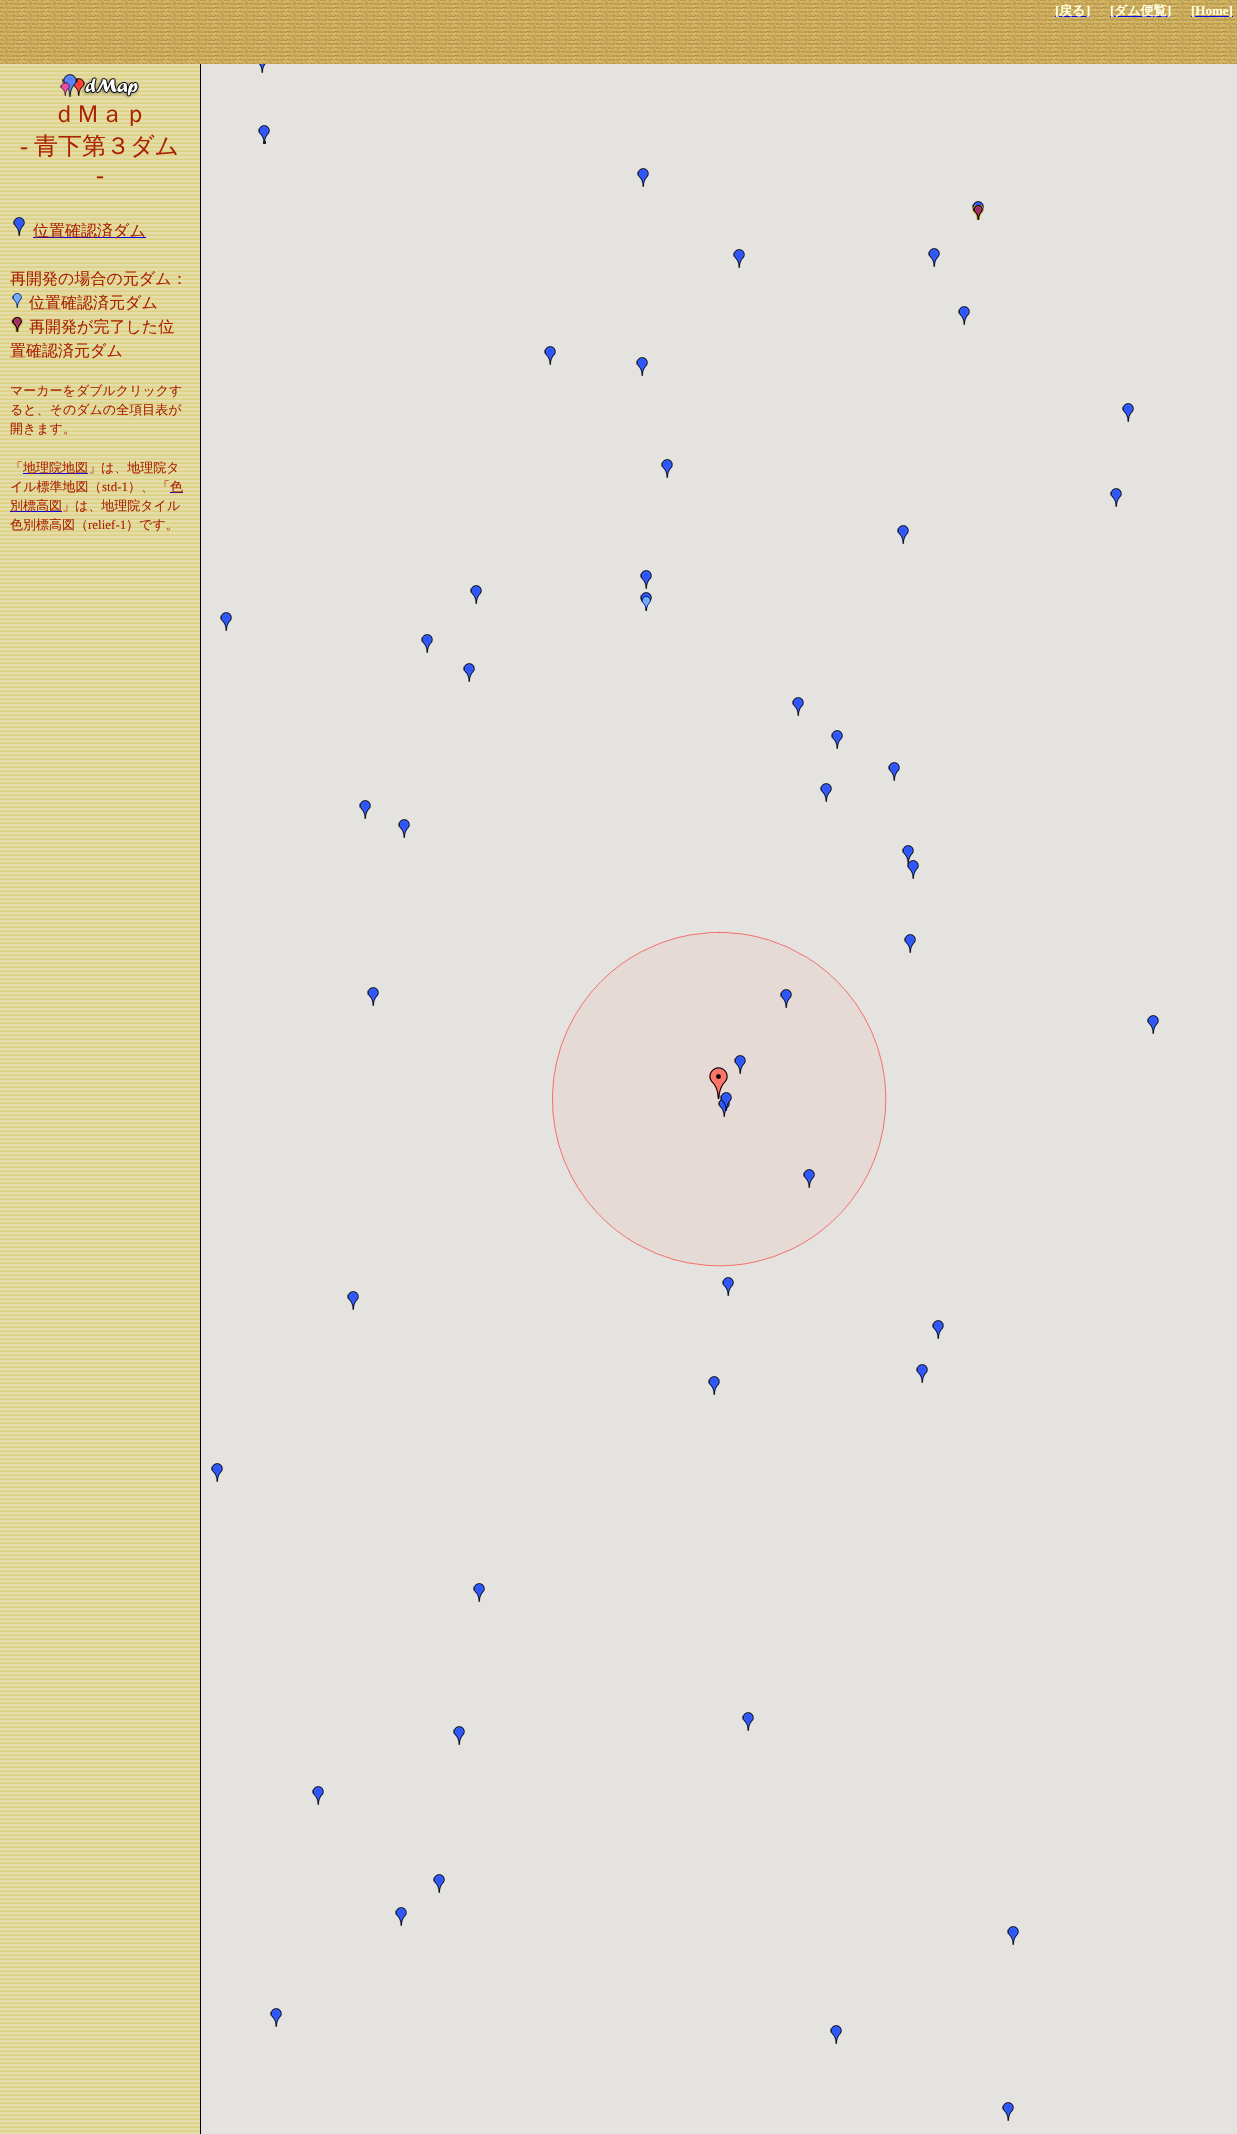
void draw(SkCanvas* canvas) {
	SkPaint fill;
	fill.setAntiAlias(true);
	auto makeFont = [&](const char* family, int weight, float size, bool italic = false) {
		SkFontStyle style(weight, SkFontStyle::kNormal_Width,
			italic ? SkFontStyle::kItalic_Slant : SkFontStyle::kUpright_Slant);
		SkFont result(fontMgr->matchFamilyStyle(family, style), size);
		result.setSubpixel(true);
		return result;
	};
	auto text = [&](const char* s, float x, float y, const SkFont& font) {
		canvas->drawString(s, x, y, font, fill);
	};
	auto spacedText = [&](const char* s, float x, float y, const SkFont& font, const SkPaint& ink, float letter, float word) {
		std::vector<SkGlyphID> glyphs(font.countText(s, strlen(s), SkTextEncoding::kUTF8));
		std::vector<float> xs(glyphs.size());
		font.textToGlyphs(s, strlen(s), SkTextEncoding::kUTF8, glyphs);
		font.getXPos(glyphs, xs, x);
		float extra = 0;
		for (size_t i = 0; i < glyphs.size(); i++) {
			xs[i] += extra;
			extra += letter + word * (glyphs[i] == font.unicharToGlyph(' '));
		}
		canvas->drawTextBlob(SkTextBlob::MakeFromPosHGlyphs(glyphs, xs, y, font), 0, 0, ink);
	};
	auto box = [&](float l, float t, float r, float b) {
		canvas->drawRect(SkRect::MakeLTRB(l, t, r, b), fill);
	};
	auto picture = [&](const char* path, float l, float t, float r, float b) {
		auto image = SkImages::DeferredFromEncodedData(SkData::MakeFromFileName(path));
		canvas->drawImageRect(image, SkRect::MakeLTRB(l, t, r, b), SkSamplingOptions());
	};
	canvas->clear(0xFFFFFFFF);
	picture("image0.png", 0, 64, 200, 2134);
	picture("image1.png", 0, 0, 1237, 64);
	fill.setColor(0xFF0000EE);
	box(1055, 16, 1090, 17);
	box(1110, 16, 1171, 17);
	box(1191, 16, 1233, 17);
	picture("image2.png", 60, 74, 140, 98);
	picture("image3.png", 13, 217, 25, 236);
	box(33, 237, 146, 238);
	picture("image4.png", 12, 293, 22, 308);
	picture("image5.png", 11, 317, 23, 332);
	box(23, 473, 88, 474);
	box(170, 492, 183, 493);
	box(10, 511, 62, 512);
	fill.setColor(0xFF000000);
	box(200, 64, 201, 2134);
	fill.setColor(0xFFE5E3DF);
	box(201, 64, 1237, 2134);
	picture("image6.png", 258, 64, 270, 141);
	fill.setColor(0xFF1F1F20);
	box(263, 141, 266, 144);
	picture("image7.png", 636, 168, 745, 376);
	picture("image8.png", 928, 201, 984, 325);
	picture("image9.png", 544, 346, 556, 365);
	picture("image10.png", 640, 459, 673, 611);
	picture("image11.png", 897, 403, 1134, 544);
	picture("image9.png", 220, 612, 232, 631);
	picture("image12.png", 421, 585, 482, 653);
	picture("image13.png", 367, 663, 475, 838);
	picture("image14.png", 792, 697, 843, 802);
	picture("image15.png", 359, 800, 367, 819);
	picture("image16.png", 888, 762, 919, 879);
	picture("image9.png", 904, 934, 916, 953);
	picture("image9.png", 367, 987, 379, 1006);
	picture("image24.png", 623, 931, 879, 1165);
	picture("image17.png", 709, 989, 792, 1117);
	picture("image9.png", 1147, 1015, 1159, 1034);
	picture("image9.png", 347, 1291, 359, 1310);
	picture("image27.png", 623, 1165, 873, 1267);
	picture("image18.png", 708, 1169, 815, 1395);
	picture("image19.png", 916, 1320, 944, 1383);
	picture("image9.png", 211, 1463, 223, 1482);
	picture("image9.png", 473, 1583, 485, 1602);
	picture("image9.png", 742, 1712, 754, 1731);
	picture("image9.png", 312, 1786, 324, 1805);
	picture("image20.png", 395, 1726, 465, 1926);
	picture("image21.png", 1007, 1926, 1019, 1933);
	picture("image9.png", 270, 2008, 282, 2027);
	picture("image22.png", 1002, 1933, 1019, 2121);
	picture("image9.png", 830, 2025, 842, 2044);
	picture("image23.png", 552, 962, 623, 1165);
	picture("image25.png", 879, 1051, 887, 1148);
	picture("image26.png", 565, 1165, 623, 1236);
	auto font1 = makeFont("Liberation Serif", 700, 13);
	fill.setColor(0xFFFFFFE0);
	text("[", 1055, 15, font1);
	auto font2 = makeFont("WenQuanYi Zen Hei", 700, 13);
	text("戻る", 1059, 15, font2);
	text("]", 1086, 15, font1);
	text("[", 1110, 15, font1);
	text("ダム便覧", 1114, 15, font2);
	text("]", 1167, 15, font1);
	text("[Home]", 1191, 15, font1);
	auto font3 = makeFont("WenQuanYi Zen Hei", 500, 24);
	fill.setColor(0xFFAA2200);
	text("ｄＭａｐ", 52, 122, font3);
	auto font4 = makeFont("Liberation Serif", 400, 24);
	text("-", 20, 154, font4);
	text("青下第３ダム", 34, 154, font3);
	text("-", 96, 183, font4);
	auto font5 = makeFont("WenQuanYi Zen Hei", 500, 16);
	text("位置確認済ダム", 33, 236, font5);
	text("再開発の場合の元ダム：", 10, 284, font5);
	text("位置確認済元ダム", 29, 308, font5);
	text("再開発が完了した位", 29, 332, font5);
	text("置確認済元ダム", 10, 356, font5);
	auto font6 = makeFont("WenQuanYi Zen Hei", 500, 13);
	text("マーカーをダブルクリックす", 10, 395, font6);
	text("ると、そのダムの全項目表が", 10, 414, font6);
	text("開きます。", 10, 433, font6);
	text("「", 10, 472, font6);
	text("地理院地図」は、地理院タ", 23, 472, font6);
	text("イル標準地図（", 10, 491, font6);
	auto font7 = makeFont("Liberation Serif", 400, 13);
	text("std-1", 102, 491, font7);
	spacedText("）、 「", 128, 491, font6, fill, 0, -1);
	text("色", 170, 491, font6);
	text("別標高図」は、地理院タイル", 10, 510, font6);
	text("色別標高図（", 10, 529, font6);
	text("relief-1", 88, 529, font7);
	text("）です。", 126, 529, font6);
}
